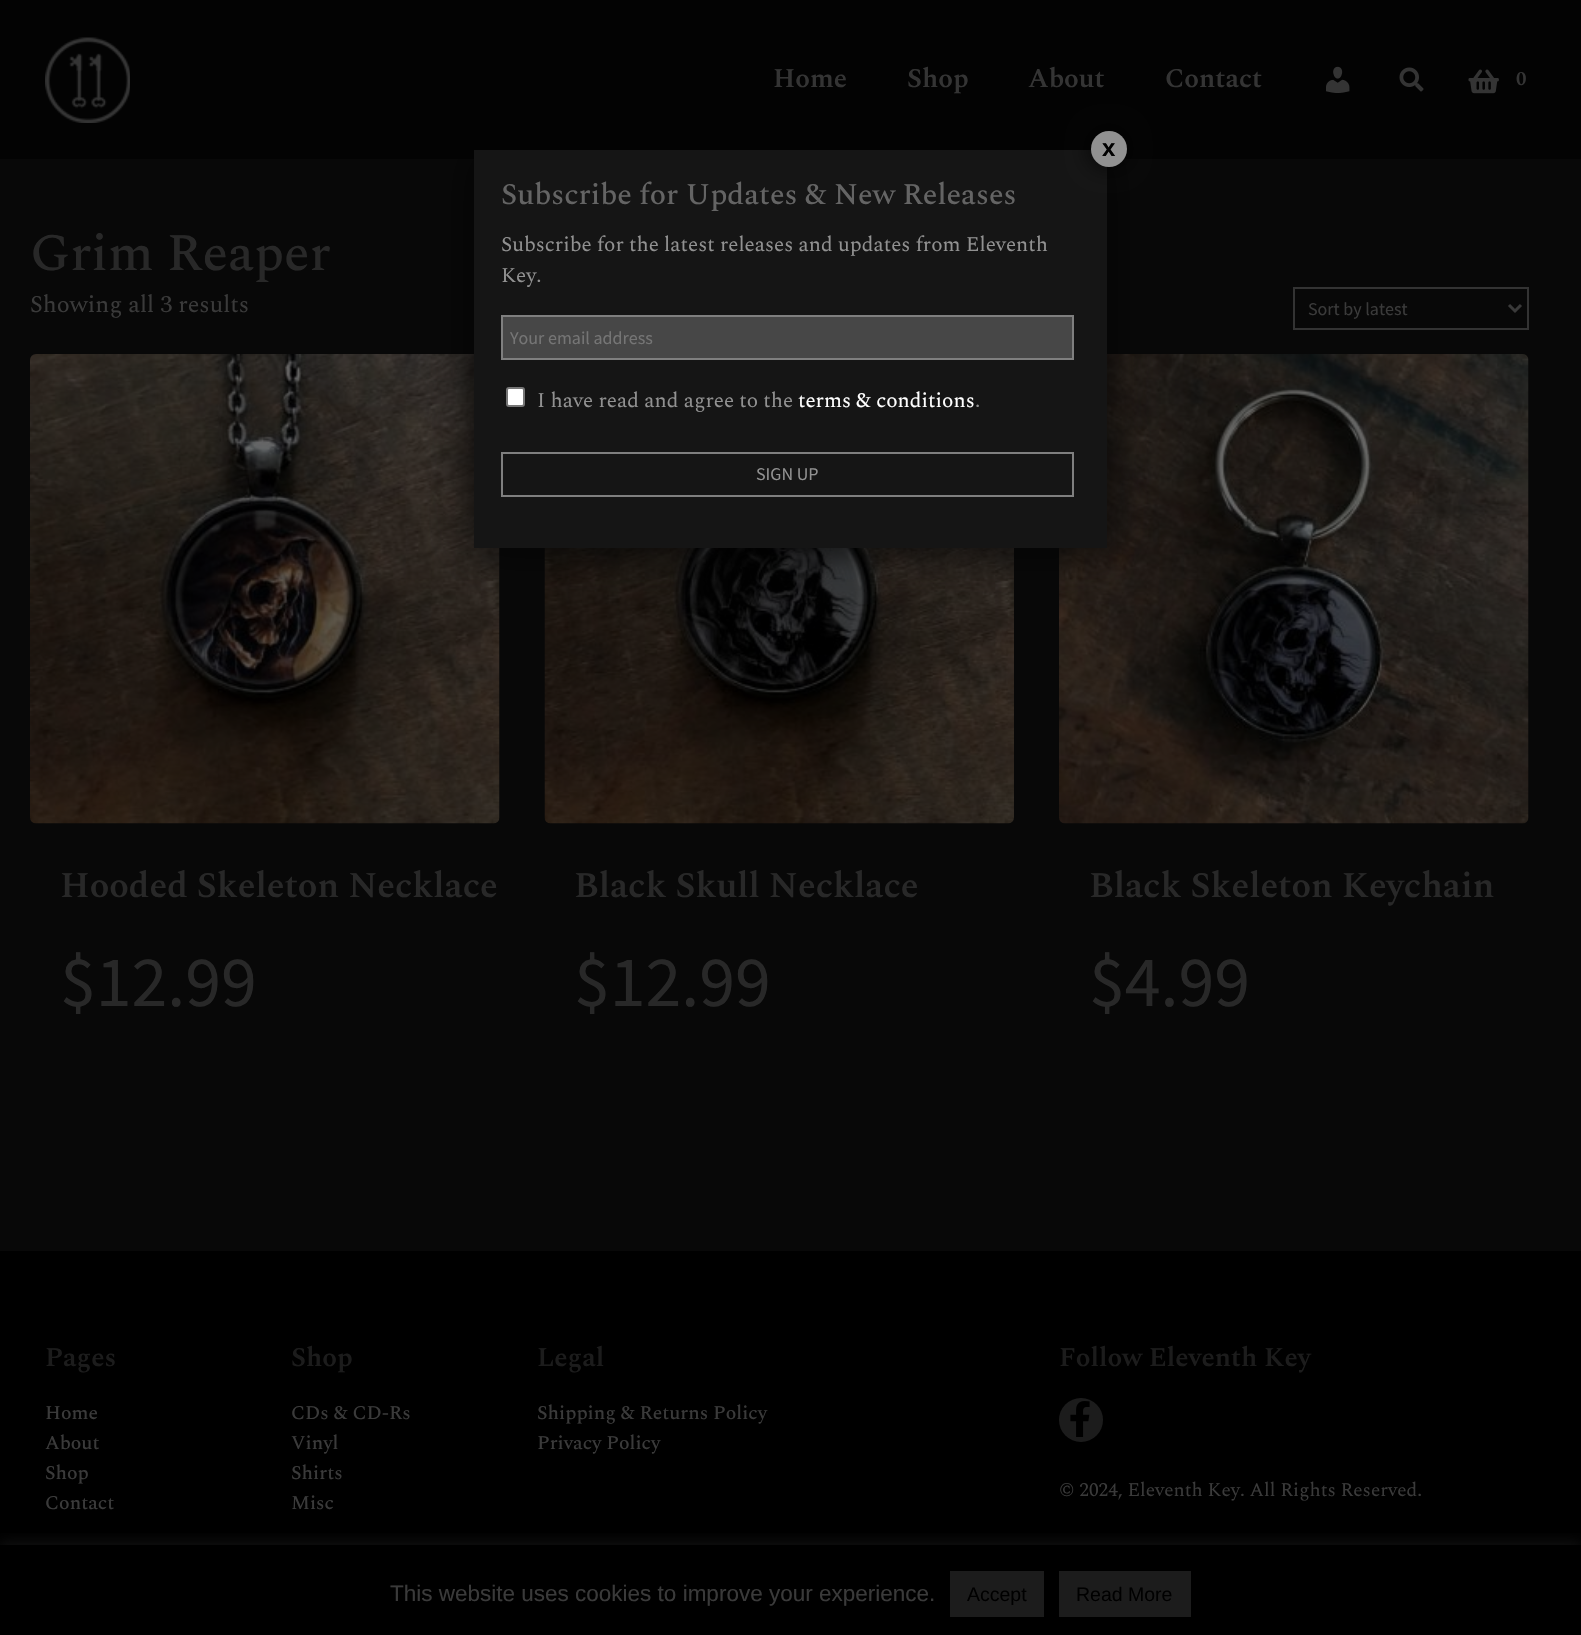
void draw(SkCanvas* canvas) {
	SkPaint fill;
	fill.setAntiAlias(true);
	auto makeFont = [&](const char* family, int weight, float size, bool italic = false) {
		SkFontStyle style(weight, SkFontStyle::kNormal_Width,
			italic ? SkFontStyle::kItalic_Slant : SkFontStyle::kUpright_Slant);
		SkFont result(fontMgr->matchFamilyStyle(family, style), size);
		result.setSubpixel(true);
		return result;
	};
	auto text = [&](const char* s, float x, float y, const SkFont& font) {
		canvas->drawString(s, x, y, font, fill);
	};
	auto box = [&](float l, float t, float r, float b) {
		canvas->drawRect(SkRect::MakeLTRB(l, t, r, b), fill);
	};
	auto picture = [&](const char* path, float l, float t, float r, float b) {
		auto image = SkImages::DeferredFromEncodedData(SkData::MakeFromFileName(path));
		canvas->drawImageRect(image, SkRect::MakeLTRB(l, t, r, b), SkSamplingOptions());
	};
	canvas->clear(0xFF080808);
	fill.setColor(0xFF030303);
	box(0, 0, 1581, 159);
	picture("image0.png", 45, 37, 130, 123);
	picture("image1.png", 1326, 66, 1350, 93);
	picture("image2.png", 1399, 67, 1424, 92);
	picture("image3.png", 1468, 69, 1499, 94);
	fill.setStyle(SkPaint::kStroke_Style);
	fill.setStrokeWidth(2);
	fill.setColor(0xFF333333);
	canvas->drawRect(SkRect::MakeLTRB(1294, 288, 1528, 329), fill);
	fill.setStrokeWidth(3);
	fill.setColor(0xFF3A3A3A);
	canvas->drawPath(SkPathBuilder().moveTo(1509, 305).lineTo(1515, 311).lineTo(1521, 305).detach(), fill);
	picture("image4.png", 30, 354, 500, 824);
	picture("image5.png", 544, 548, 1014, 824);
	picture("image6.png", 1059, 354, 1529, 824);
	fill.setStyle(SkPaint::kFill_Style);
	fill.setColor(0xFF000000);
	box(0, 1251, 1581, 1635);
	fill.setColor(0xFF1C1C1C);
	canvas->drawCircle(1081, 1420, 22, fill);
	picture("image7.png", 1070, 1401, 1090, 1437);
	fill.setColor(0xFF020202);
	fill.setMaskFilter(SkMaskFilter::MakeBlur(kNormal_SkBlurStyle, 22.5f));
	canvas->drawRect(SkRect::MakeLTRB(474, 150, 1107, 548), fill);
	fill.setMaskFilter(nullptr);
	fill.setColor(0xFF151515);
	box(474, 150, 1107, 548);
	fill.setColor(0xBF020202);
	fill.setMaskFilter(SkMaskFilter::MakeBlur(kNormal_SkBlurStyle, 11));
	canvas->drawRoundRect(SkRect::MakeLTRB(1089, 129, 1128, 168), 19.5f, 19.5f, fill);
	fill.setMaskFilter(nullptr);
	fill.setColor(0xFF919191);
	canvas->drawCircle(1109, 149, 18, fill);
	fill.setColor(0xFF474747);
	canvas->drawRect(SkRect::MakeLTRB(502, 316, 1073, 359), fill);
	fill.setStyle(SkPaint::kStroke_Style);
	fill.setStrokeWidth(2);
	fill.setColor(0xFF7F7F7F);
	canvas->drawRect(SkRect::MakeLTRB(502, 316, 1073, 359), fill);
	fill.setStyle(SkPaint::kFill_Style);
	fill.setColor(0xFFFFFFFF);
	canvas->drawRoundRect(SkRect::MakeLTRB(507, 388, 524, 406), 2, 2, fill);
	fill.setStyle(SkPaint::kStroke_Style);
	fill.setColor(0xFF767676);
	canvas->drawRoundRect(SkRect::MakeLTRB(507, 388, 524, 406), 2, 2, fill);
	fill.setColor(0xFF7F7F7F);
	canvas->drawRect(SkRect::MakeLTRB(502, 453, 1073, 496), fill);
	canvas->save();
	canvas->clipRect(SkRect::MakeLTRB(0, 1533, 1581, 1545));
	fill.setStyle(SkPaint::kFill_Style);
	fill.setColor(0x4D454444);
	fill.setMaskFilter(SkMaskFilter::MakeBlur(kNormal_SkBlurStyle, 7.5f));
	canvas->drawRect(SkRect::MakeLTRB(0, 1544, 1581, 1634), fill);
	fill.setMaskFilter(nullptr);
	canvas->restore();
	fill.setColor(0xFF1C1C1C);
	box(950, 1571, 1044, 1617);
	box(1059, 1571, 1191, 1617);
	auto font1 = makeFont("Spectral", 600, 27);
	fill.setColor(0xFF343434);
	text("Home", 773, 87, font1);
	text("Shop", 907, 87, font1);
	text("About", 1028, 87, font1);
	text("Contact", 1165, 87, font1);
	auto font2 = makeFont("Spectral", 600, 19.5f);
	text("0", 1516, 85, font2);
	auto font3 = makeFont("Spectral", 500, 52.5f);
	fill.setColor(0xFF282828);
	text("Grim Reaper", 30, 270, font3);
	auto font4 = makeFont("Spectral", 400, 24);
	fill.setColor(0xFF3A3A3A);
	text("Showing all 3 results", 30, 312, font4);
	auto font5 = makeFont("Source Sans Pro", 400, 18);
	text("Sort by latest", 1308, 315, font5);
	auto font6 = makeFont("Spectral", 600, 36);
	fill.setColor(0xFF282828);
	text("Hooded Skeleton Necklace", 60, 897, font6);
	auto font7 = makeFont("Source Sans Pro", 400, 72);
	text("$12.99", 60, 1006, font7);
	text("Black Skull Necklace", 574, 897, font6);
	text("$12.99", 574, 1006, font7);
	text("Black Skeleton Keychain", 1089, 897, font6);
	text("$4.99", 1089, 1006, font7);
	fill.setColor(0xFF1C1C1C);
	text("Pages", 45, 1366, font1);
	auto font8 = makeFont("Spectral", 500, 19.5f);
	fill.setColor(0xFF3A3A3A);
	text("Home", 45, 1419, font8);
	text("About", 45, 1449, font8);
	text("Shop", 45, 1479, font8);
	text("Contact", 45, 1509, font8);
	fill.setColor(0xFF1C1C1C);
	text("Shop", 291, 1366, font1);
	fill.setColor(0xFF3A3A3A);
	text("CDs & CD-Rs", 291, 1419, font8);
	text("Vinyl", 291, 1449, font8);
	text("Shirts", 291, 1479, font8);
	text("Misc", 291, 1509, font8);
	fill.setColor(0xFF1C1C1C);
	text("Legal", 537, 1366, font1);
	fill.setColor(0xFF3A3A3A);
	text("Shipping & Returns Policy", 537, 1419, font8);
	text("Privacy Policy", 537, 1449, font8);
	fill.setColor(0xFF1C1C1C);
	text("Follow Eleventh Key", 1059, 1366, font1);
	auto font9 = makeFont("Spectral", 400, 19.25f);
	fill.setColor(0xFF3A3A3A);
	text("© 2024, Eleventh Key. All Rights Reserved.", 1059, 1496, font9);
	auto font10 = makeFont("Liberation Sans", 700, 24);
	fill.setColor(0xFF000000);
	text("x", 1102, 156, font10);
	auto font11 = makeFont("Spectral", 500, 30);
	fill.setColor(0xFF646464);
	text("Subscribe for Updates & New Releases", 501, 204, font11);
	auto font12 = makeFont("Spectral", 400, 21);
	fill.setColor(0xFF919191);
	text("Subscribe for the latest releases and updates from Eleventh", 501, 251, font12);
	text("Key.", 501, 282, font12);
	fill.setColor(0xFF757575);
	text("Your email address", 510, 344, font5);
	fill.setColor(0xFF919191);
	text("I have read and agree to the", 537, 407, font12);
	fill.setColor(0xFFFFFFFF);
	text("terms & conditions", 798, 407, font12);
	fill.setColor(0xFF919191);
	text(".", 975, 407, font12);
	text("SIGN UP", 756, 480, font5);
	auto font13 = makeFont("Liberation Sans", 400, 22.5f);
	fill.setColor(0xFF3A3A3A);
	text("This website uses cookies to improve your experience.", 390, 1601, font13);
	auto font14 = makeFont("Liberation Sans", 400, 19.5f);
	fill.setColor(0xFF000000);
	text("Accept", 967, 1601, font14);
	text("Read More", 1076, 1601, font14);
}
